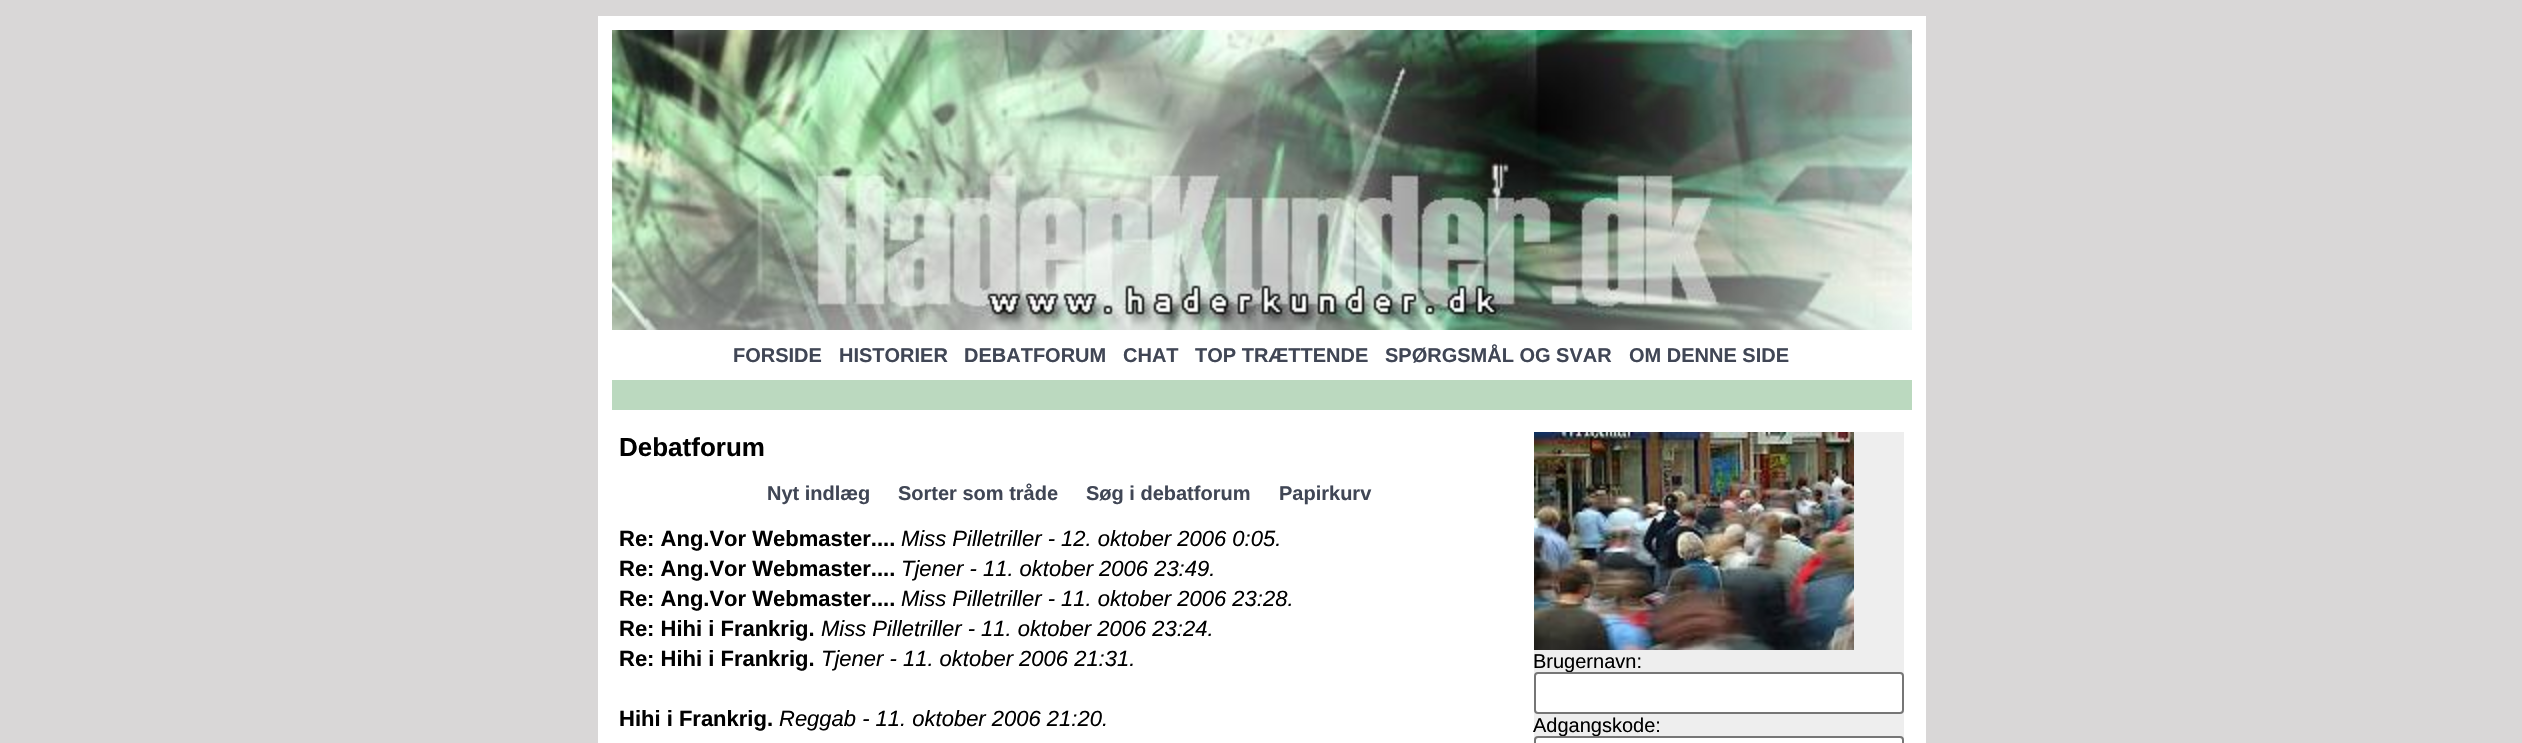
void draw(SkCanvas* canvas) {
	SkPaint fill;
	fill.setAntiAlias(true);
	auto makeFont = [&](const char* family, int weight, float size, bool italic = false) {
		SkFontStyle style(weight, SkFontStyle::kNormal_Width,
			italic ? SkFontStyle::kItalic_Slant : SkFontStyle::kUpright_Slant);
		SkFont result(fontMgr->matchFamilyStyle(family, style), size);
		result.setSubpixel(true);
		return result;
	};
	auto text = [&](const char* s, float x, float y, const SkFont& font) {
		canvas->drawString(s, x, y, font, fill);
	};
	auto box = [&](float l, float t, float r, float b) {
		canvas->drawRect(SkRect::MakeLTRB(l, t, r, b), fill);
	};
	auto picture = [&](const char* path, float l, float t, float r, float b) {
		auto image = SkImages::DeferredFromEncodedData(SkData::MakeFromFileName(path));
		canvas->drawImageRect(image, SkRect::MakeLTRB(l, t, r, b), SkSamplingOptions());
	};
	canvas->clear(0xFFD9D7D7);
	fill.setColor(0xFFFFFFFF);
	box(598, 16, 1926, 743);
	picture("image0.png", 612, 30, 1912, 330);
	fill.setColor(0xFFBBD9BF);
	box(612, 380, 1912, 410);
	fill.setColor(0xFFEEEEEE);
	box(1534, 432, 1904, 740);
	picture("image1.png", 1534, 432, 1854, 650);
	auto font1 = makeFont("Liberation Sans", 700, 20);
	fill.setColor(0xFF404655);
	text("FORSIDE", 733, 362, font1);
	text("HISTORIER", 839, 362, font1);
	text("DEBATFORUM", 964, 362, font1);
	text("CHAT", 1123, 362, font1);
	text("TOP TRÆTTENDE", 1195, 362, font1);
	text("SPØRGSMÅL OG SVAR", 1385, 362, font1);
	text("OM DENNE SIDE", 1629, 362, font1);
	auto font2 = makeFont("Liberation Sans", 700, 26);
	fill.setColor(0xFF000000);
	text("Debatforum", 619, 456, font2);
	fill.setColor(0xFF404655);
	text("Nyt indlæg", 767, 500, font1);
	text("Sorter som tråde", 898, 500, font1);
	text("Søg i debatforum", 1086, 500, font1);
	text("Papirkurv", 1279, 500, font1);
	auto font3 = makeFont("Liberation Sans", 700, 22);
	fill.setColor(0xFF000000);
	text("Re: Ang.Vor Webmaster....", 619, 546, font3);
	auto font4 = makeFont("Liberation Sans", 400, 22, true);
	text("Miss Pilletriller - 12. oktober 2006 0:05.", 901, 546, font4);
	text("Re: Ang.Vor Webmaster....", 619, 576, font3);
	text("Tjener - 11. oktober 2006 23:49.", 901, 576, font4);
	text("Re: Ang.Vor Webmaster....", 619, 606, font3);
	text("Miss Pilletriller - 11. oktober 2006 23:28.", 901, 606, font4);
	text("Re: Hihi i Frankrig.", 619, 636, font3);
	text("Miss Pilletriller - 11. oktober 2006 23:24.", 821, 636, font4);
	text("Re: Hihi i Frankrig.", 619, 666, font3);
	text("Tjener - 11. oktober 2006 21:31.", 821, 666, font4);
	text("Hihi i Frankrig.", 619, 726, font3);
	text("Reggab - 11. oktober 2006 21:20.", 779, 726, font4);
	auto font5 = makeFont("Liberation Sans", 400, 20);
	text("Brugernavn:", 1533, 668, font5);
	fill.setColor(0xFFFFFFFF);
	canvas->drawRoundRect(SkRect::MakeLTRB(1535, 673, 1903, 713), 3, 3, fill);
	fill.setStyle(SkPaint::kStroke_Style);
	fill.setStrokeWidth(2);
	fill.setColor(0xFF767676);
	canvas->drawRoundRect(SkRect::MakeLTRB(1535, 673, 1903, 713), 3, 3, fill);
	fill.setStyle(SkPaint::kFill_Style);
	fill.setColor(0xFF000000);
	text("Adgangskode:", 1533, 732, font5);
	fill.setColor(0xFFFFFFFF);
	canvas->drawRoundRect(SkRect::MakeLTRB(1535, 737, 1903, 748), 3, 3, fill);
	fill.setStyle(SkPaint::kStroke_Style);
	fill.setColor(0xFF767676);
	canvas->drawRoundRect(SkRect::MakeLTRB(1535, 737, 1903, 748), 3, 3, fill);
}
